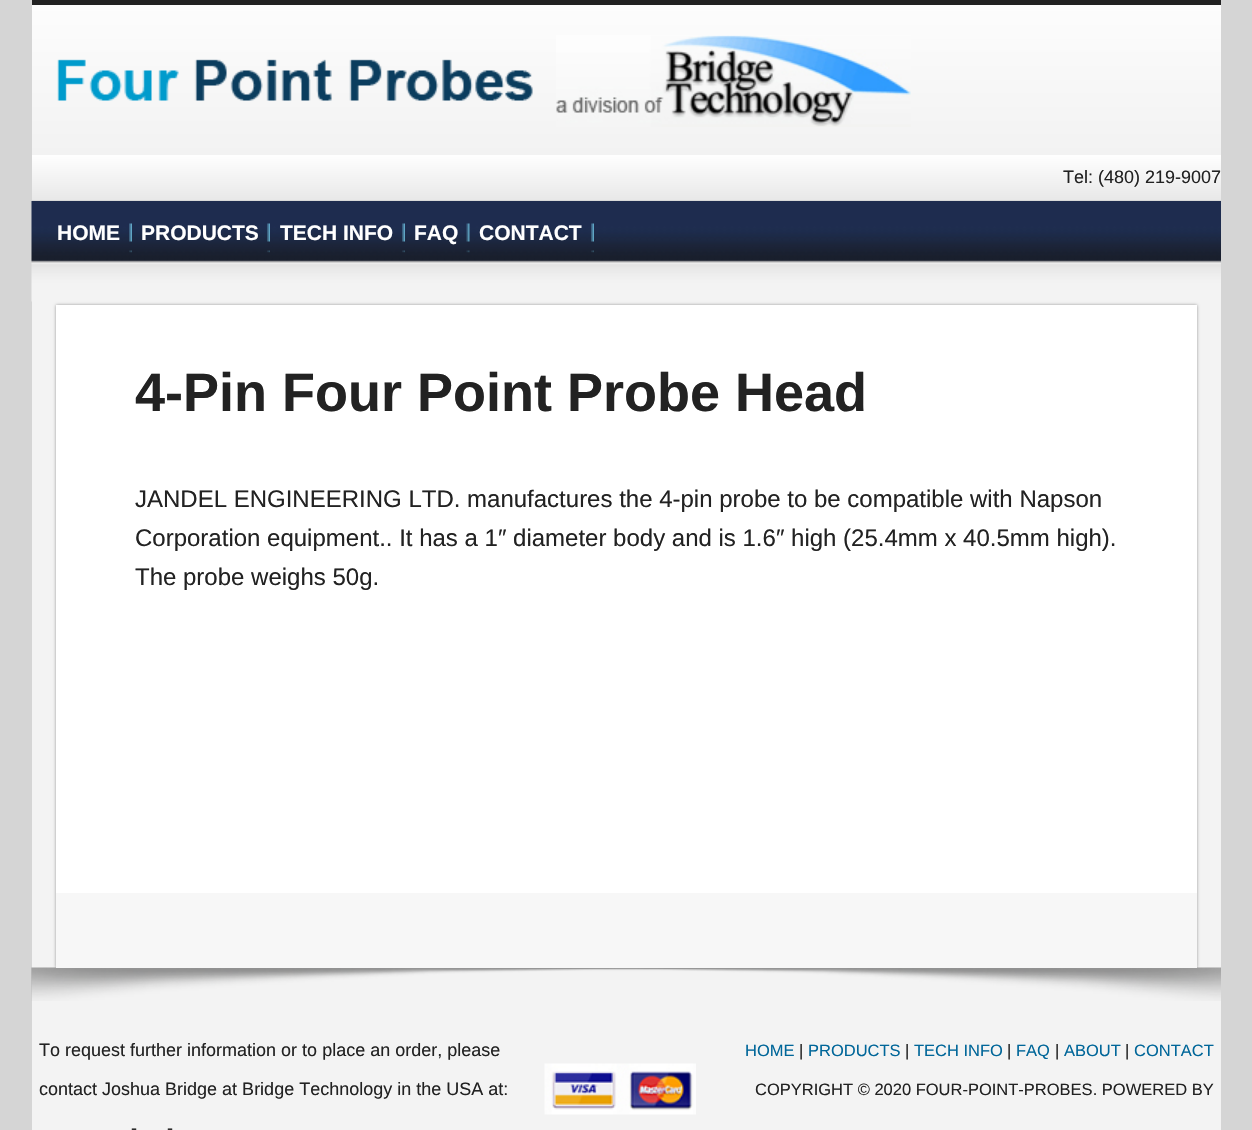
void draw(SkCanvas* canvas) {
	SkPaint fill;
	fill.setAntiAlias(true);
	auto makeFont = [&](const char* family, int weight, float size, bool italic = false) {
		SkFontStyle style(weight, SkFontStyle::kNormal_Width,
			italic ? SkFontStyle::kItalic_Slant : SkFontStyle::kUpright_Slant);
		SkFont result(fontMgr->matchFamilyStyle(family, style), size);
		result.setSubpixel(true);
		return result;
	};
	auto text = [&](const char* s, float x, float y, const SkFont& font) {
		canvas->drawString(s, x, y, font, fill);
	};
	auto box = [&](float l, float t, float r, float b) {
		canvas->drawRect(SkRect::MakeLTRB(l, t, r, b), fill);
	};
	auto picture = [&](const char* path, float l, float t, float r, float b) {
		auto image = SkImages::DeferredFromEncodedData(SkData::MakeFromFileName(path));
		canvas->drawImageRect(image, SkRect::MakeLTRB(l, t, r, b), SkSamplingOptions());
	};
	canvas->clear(0xFFD5D5D5);
	fill.setColor(0xFF222222);
	box(32, 0, 1221, 5);
	fill.setColor(0xFFF3F3F3);
	box(32, 301, 1221, 1130);
	{
		const SkColor colors[] = {0xFFFDFDFD, 0xFFF2F2F2};
		const float stops[] = {0, 1};
		const SkPoint ends[] = {{626, 4.5f}, {626, 155}};
		fill.setShader(SkGradientShader::MakeLinear(ends, colors, stops, 2, SkTileMode::kClamp));
		fill.setAlpha(255);
	}
	box(32, 5, 1221, 155);
	picture("image0.png", 57, 59, 533, 101);
	picture("image1.png", 556, 35, 911, 127);
	{
		const SkColor colors[] = {0xFFFFFFFF, 0xFFE8E8E8};
		const float stops[] = {0, 1};
		const SkPoint ends[] = {{626, 154}, {626, 200}};
		fill.setShader(SkGradientShader::MakeLinear(ends, colors, stops, 2, SkTileMode::kClamp));
		fill.setAlpha(255);
	}
	box(32, 155, 1221, 200);
	fill.setShader(nullptr);
	fill.setColor(0xFFD9D9D9);
	box(32, 200, 1221, 201);
	picture("image2.png", 31, 201, 1221, 302);
	picture("image3.png", 129, 223, 132, 253);
	picture("image4.png", 267, 223, 270, 253);
	picture("image5.png", 402, 223, 405, 253);
	picture("image6.png", 466, 223, 470, 253);
	picture("image7.png", 591, 223, 594, 253);
	picture("image8.png", 31, 967, 1221, 1001);
	fill.setColor(0xFF999999);
	fill.setMaskFilter(SkMaskFilter::MakeBlur(kNormal_SkBlurStyle, 1.5f));
	canvas->drawRect(SkRect::MakeLTRB(56, 305, 1197, 968), fill);
	fill.setMaskFilter(nullptr);
	fill.setColor(0xFFFFFFFF);
	box(56, 305, 1197, 893);
	fill.setColor(0xFFF7F7F7);
	box(56, 893, 1197, 968);
	picture("image9.png", 544, 1063, 696, 1115);
	auto font1 = makeFont("Liberation Sans", 400, 18);
	fill.setColor(0xFF222222);
	text("Tel: (480) 219-9007", 1063, 183, font1);
	auto font2 = makeFont("Liberation Sans", 700, 21);
	fill.setColor(0xFFFFFFFF);
	text("HOME", 57, 240, font2);
	text("PRODUCTS", 141, 240, font2);
	text("TECH INFO", 280, 240, font2);
	text("FAQ", 414, 240, font2);
	text("CONTACT", 479, 240, font2);
	auto font3 = makeFont("Liberation Sans", 700, 54);
	fill.setColor(0xFF222222);
	text("4-Pin Four Point Probe Head", 135, 411, font3);
	auto font4 = makeFont("Liberation Sans", 400, 24);
	text("JANDEL ENGINEERING LTD. manufactures the 4-pin probe to be compatible with Napson", 135, 507, font4);
	text("Corporation equipment.. It has a 1″ diameter body and is 1.6″ high (25.4mm x 40.5mm high).", 135, 546, font4);
	text("The probe weighs 50g.", 135, 585, font4);
	text("To request further information or to place an order, please", 39, 1056, font1);
	text("contact Joshua Bridge at Bridge Technology in the USA at:", 39, 1095, font1);
	text("-", 131, 1134, font1);
	text("-", 167, 1134, font1);
	auto font5 = makeFont("Liberation Sans", 400, 16.5f);
	fill.setColor(0xFF006699);
	text("HOME", 745, 1056, font5);
	fill.setColor(0xFF222222);
	text("|", 799, 1056, font5);
	fill.setColor(0xFF006699);
	text("PRODUCTS", 808, 1056, font5);
	fill.setColor(0xFF222222);
	text("|", 905, 1056, font5);
	fill.setColor(0xFF006699);
	text("TECH INFO", 914, 1056, font5);
	fill.setColor(0xFF222222);
	text("|", 1007, 1056, font5);
	fill.setColor(0xFF006699);
	text("FAQ", 1016, 1056, font5);
	fill.setColor(0xFF222222);
	text("|", 1055, 1056, font5);
	fill.setColor(0xFF006699);
	text("ABOUT", 1064, 1056, font5);
	fill.setColor(0xFF222222);
	text("|", 1125, 1056, font5);
	fill.setColor(0xFF006699);
	text("CONTACT", 1134, 1056, font5);
	fill.setColor(0xFF222222);
	text("COPYRIGHT © 2020 FOUR-POINT-PROBES. POWERED BY", 755, 1095, font5);
}
